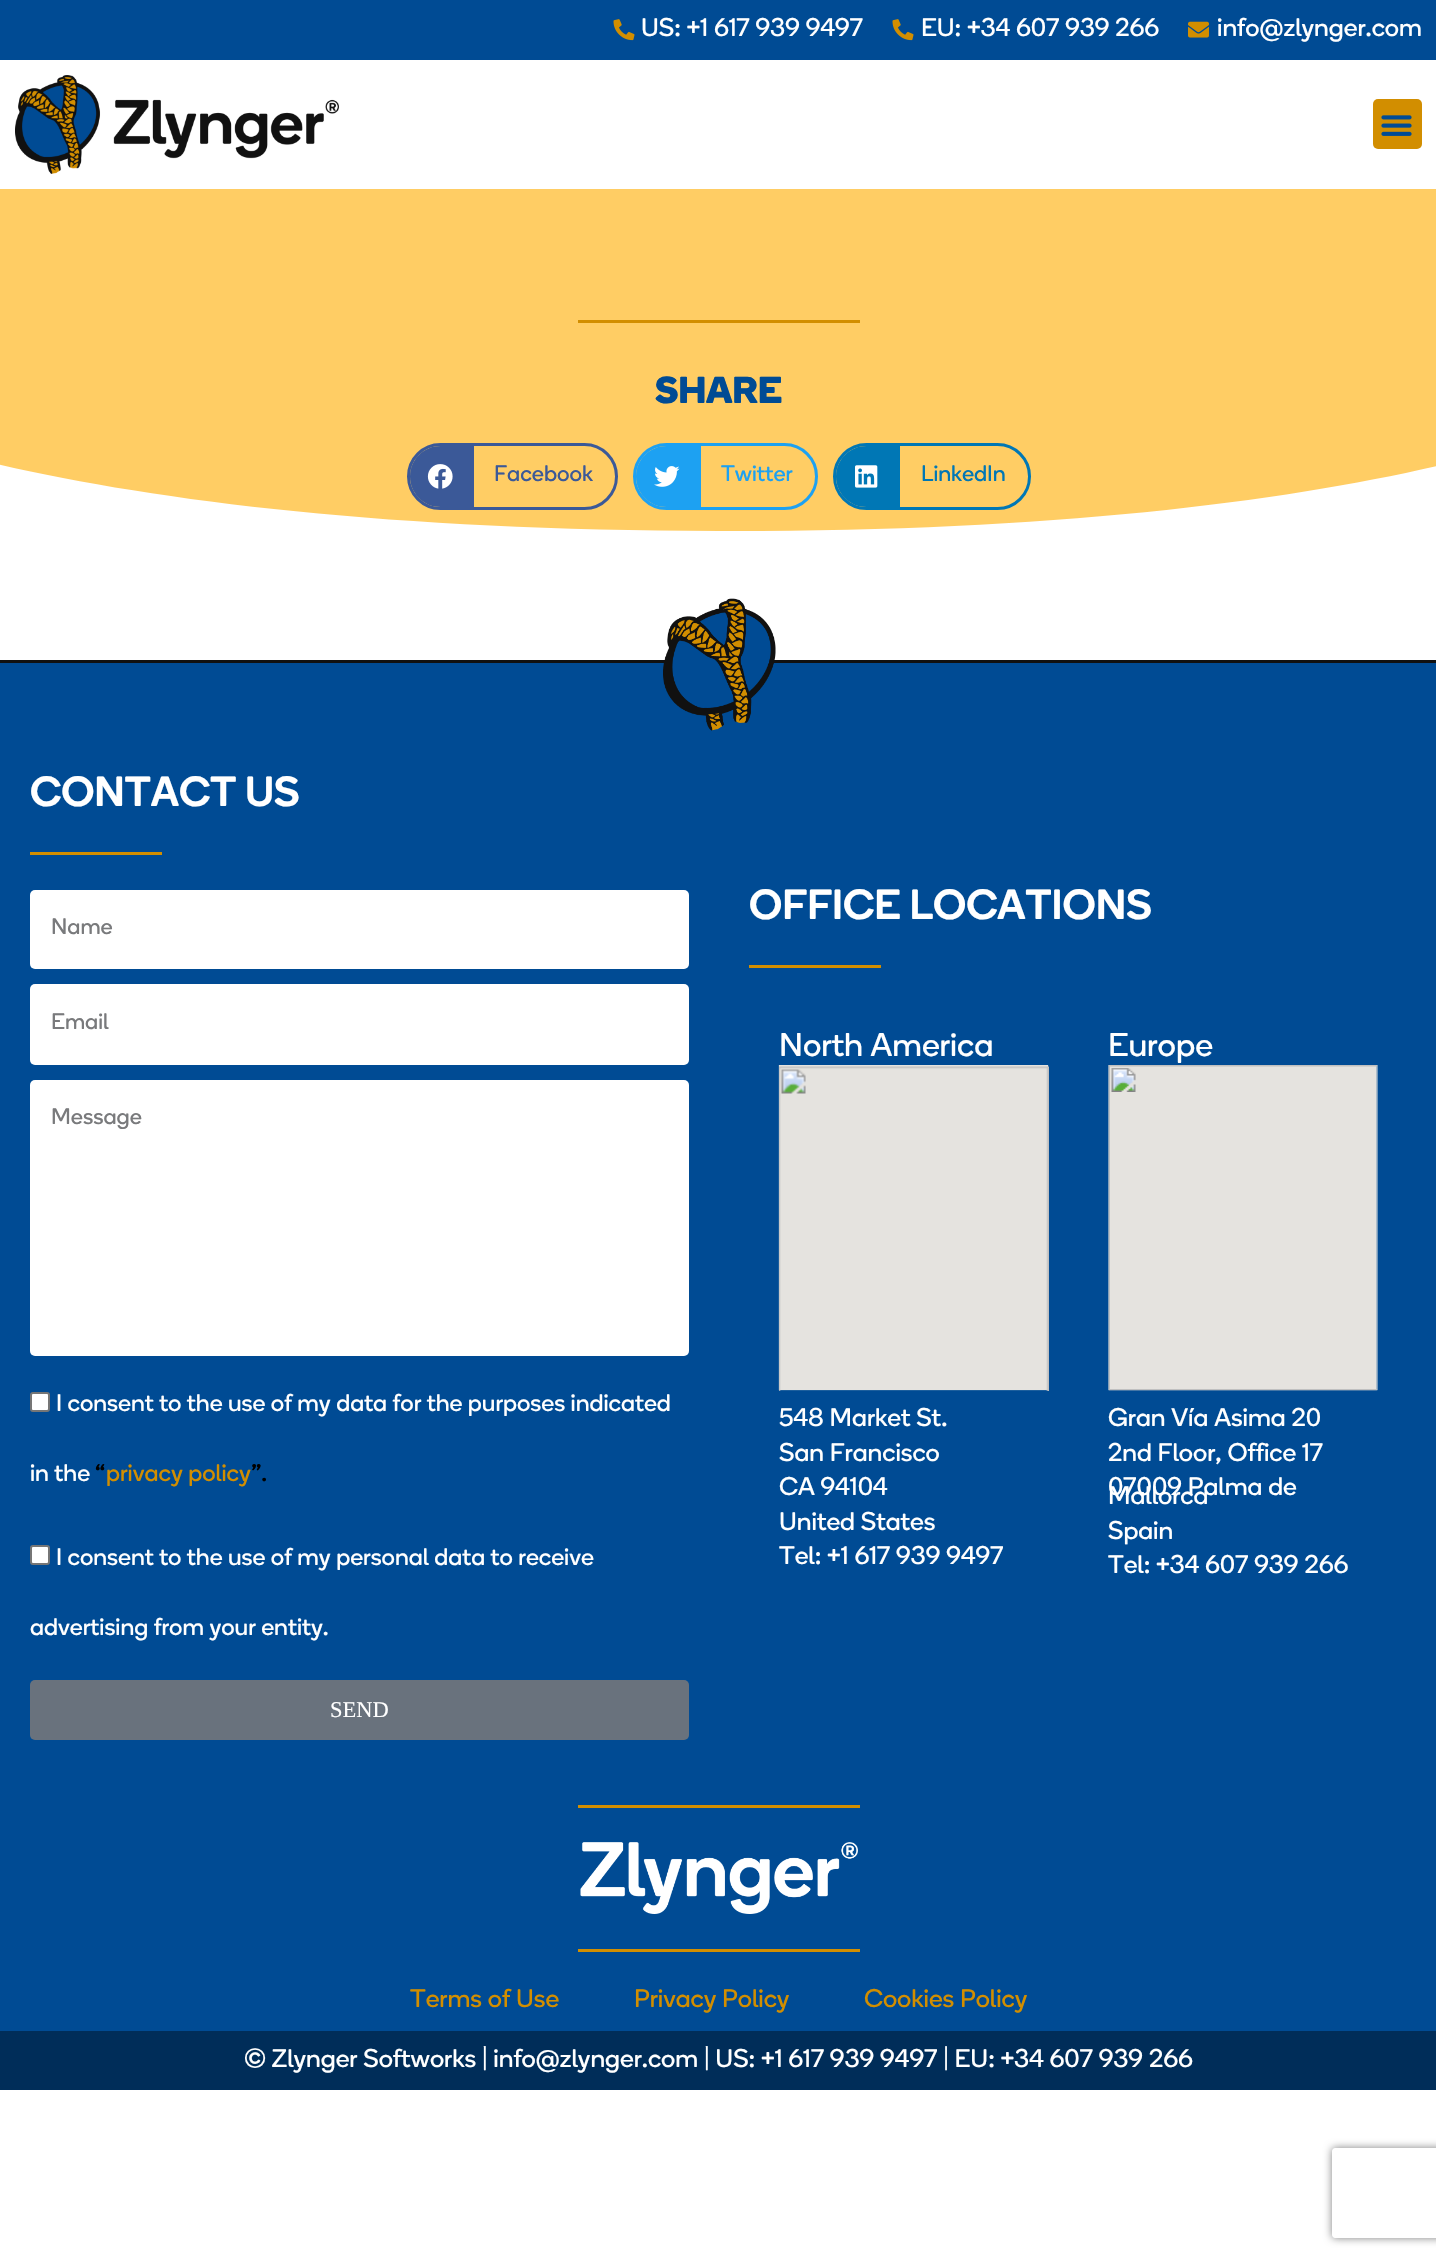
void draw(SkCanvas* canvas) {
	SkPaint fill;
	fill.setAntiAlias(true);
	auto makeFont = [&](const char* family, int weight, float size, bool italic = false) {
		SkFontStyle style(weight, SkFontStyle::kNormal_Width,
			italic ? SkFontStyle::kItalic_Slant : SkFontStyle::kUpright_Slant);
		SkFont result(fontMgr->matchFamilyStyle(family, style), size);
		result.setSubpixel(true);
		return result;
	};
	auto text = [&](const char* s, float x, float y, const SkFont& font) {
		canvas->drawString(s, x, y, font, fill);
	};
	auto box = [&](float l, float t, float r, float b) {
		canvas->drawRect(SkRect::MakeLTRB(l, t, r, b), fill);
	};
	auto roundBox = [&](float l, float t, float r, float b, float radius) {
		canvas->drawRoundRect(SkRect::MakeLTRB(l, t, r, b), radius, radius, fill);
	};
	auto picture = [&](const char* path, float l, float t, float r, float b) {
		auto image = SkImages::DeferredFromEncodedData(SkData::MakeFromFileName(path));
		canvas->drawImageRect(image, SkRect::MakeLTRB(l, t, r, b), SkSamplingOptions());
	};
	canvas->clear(0xFFFFFFFF);
	fill.setColor(0xFF004B94);
	box(0, 0, 1436, 60);
	picture("image0.png", 613, 19, 635, 41);
	picture("image0.png", 892, 19, 914, 41);
	picture("image1.png", 1188, 21, 1209, 38);
	picture("image2.png", 15, 75, 339, 174);
	fill.setColor(0xFFD28E00);
	roundBox(1373, 99, 1422, 149, 5);
	picture("image3.png", 1381, 115, 1412, 136);
	fill.setColor(0xFFFFCD64);
	box(0, 189, 1436, 531);
	fill.setColor(0xFFFFFFFF);
	canvas->drawPath(SkPathBuilder().moveTo(718, 531).cubicTo(-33, 530, -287, 376, -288, 336).lineTo(-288, 537).lineTo(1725, 537).lineTo(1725, 338).cubicTo(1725, 375, 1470, 533, 718, 531).close().detach(), fill);
	fill.setColor(0xFFD28E00);
	box(578, 320, 860, 323);
	fill.setStyle(SkPaint::kStroke_Style);
	fill.setStrokeWidth(3);
	fill.setColor(0xFF3B5998);
	canvas->drawRoundRect(SkRect::MakeLTRB(408.5f, 444.5f, 616.5f, 508.5f), 32, 32, fill);
	fill.setStyle(SkPaint::kFill_Style);
	canvas->drawPath(SkPathBuilder().moveTo(440.5f, 446).lineTo(474, 446).lineTo(474, 507).lineTo(440.5f, 507).cubicTo(423.5f, 507, 410, 493.5f, 410, 476.5f).cubicTo(410, 459.5f, 423.5f, 446, 440.5f, 446).close().detach(), fill);
	picture("image4.png", 427, 464, 453, 489);
	fill.setStyle(SkPaint::kStroke_Style);
	fill.setColor(0xFF1DA1F2);
	canvas->drawRoundRect(SkRect::MakeLTRB(634.5f, 444.5f, 816.5f, 508.5f), 32, 32, fill);
	fill.setStyle(SkPaint::kFill_Style);
	canvas->drawPath(SkPathBuilder().moveTo(666.5f, 446).lineTo(701, 446).lineTo(701, 507).lineTo(666.5f, 507).cubicTo(649.5f, 507, 636, 493.5f, 636, 476.5f).cubicTo(636, 459.5f, 649.5f, 446, 666.5f, 446).close().detach(), fill);
	picture("image5.png", 654, 466, 680, 487);
	fill.setStyle(SkPaint::kStroke_Style);
	fill.setColor(0xFF0077B5);
	canvas->drawRoundRect(SkRect::MakeLTRB(834.5f, 444.5f, 1029.5f, 508.5f), 32, 32, fill);
	fill.setStyle(SkPaint::kFill_Style);
	canvas->drawPath(SkPathBuilder().moveTo(866.5f, 446).lineTo(900, 446).lineTo(900, 507).lineTo(866.5f, 507).cubicTo(849.5f, 507, 836, 493.5f, 836, 476.5f).cubicTo(836, 459.5f, 849.5f, 446, 866.5f, 446).close().detach(), fill);
	picture("image6.png", 855, 465, 878, 488);
	fill.setColor(0xFF004B94);
	box(0, 663, 1436, 2031);
	fill.setColor(0xFF111111);
	box(0, 660, 1436, 663);
	picture("image7.png", 663, 598, 776, 731);
	fill.setColor(0xFFD28E00);
	box(30, 852, 162, 855);
	fill.setColor(0xFFFFFFFF);
	roundBox(30, 890, 689, 969, 5);
	roundBox(30, 984, 689, 1065, 5);
	roundBox(30, 1080, 689, 1356, 5);
	canvas->drawRoundRect(SkRect::MakeLTRB(31, 1393, 49, 1411), 2, 2, fill);
	fill.setStyle(SkPaint::kStroke_Style);
	fill.setStrokeWidth(2);
	fill.setColor(0xFF767676);
	canvas->drawRoundRect(SkRect::MakeLTRB(31, 1393, 49, 1411), 2, 2, fill);
	fill.setStyle(SkPaint::kFill_Style);
	fill.setColor(0xFFFFFFFF);
	canvas->drawRoundRect(SkRect::MakeLTRB(31, 1546, 49, 1564), 2, 2, fill);
	fill.setStyle(SkPaint::kStroke_Style);
	fill.setColor(0xFF767676);
	canvas->drawRoundRect(SkRect::MakeLTRB(31, 1546, 49, 1564), 2, 2, fill);
	fill.setStyle(SkPaint::kFill_Style);
	fill.setColor(0xFF69727D);
	roundBox(30, 1680, 689, 1740, 5);
	canvas->save();
	canvas->clipPath(SkPathBuilder(SkPathFillType::kEvenOdd).moveTo(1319, 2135).lineTo(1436, 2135).lineTo(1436, 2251).lineTo(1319, 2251).close().moveTo(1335, 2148).lineTo(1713, 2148).cubicTo(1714.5f, 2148, 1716, 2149.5f, 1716, 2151).lineTo(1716, 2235).cubicTo(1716, 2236.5f, 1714.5f, 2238, 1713, 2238).lineTo(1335, 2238).cubicTo(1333.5f, 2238, 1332, 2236.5f, 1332, 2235).lineTo(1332, 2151).cubicTo(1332, 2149.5f, 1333.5f, 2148, 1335, 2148).close().detach(), true);
	fill.setColor(0xFF808080);
	fill.setMaskFilter(SkMaskFilter::MakeBlur(kNormal_SkBlurStyle, 4));
	canvas->drawRoundRect(SkRect::MakeLTRB(1332, 2148, 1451, 2238), 3, 3, fill);
	fill.setMaskFilter(nullptr);
	canvas->restore();
	fill.setColor(0xFFD28E00);
	box(749, 965, 881, 968);
	picture("image8.png", 778, 1065, 1049, 1391);
	picture("image9.png", 1108, 1065, 1378, 1391);
	box(578, 1805, 860, 1808);
	picture("image10.png", 580, 1842, 858, 1914);
	box(578, 1949, 860, 1952);
	fill.setColor(0xFF002D59);
	box(0, 2031, 1436, 2090);
	auto font1 = makeFont("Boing", 400, 25.5f);
	fill.setColor(0xFFFFFFFF);
	text("US: +1 617 939 9497", 641, 36, font1);
	text("EU: +34 607 939 266", 921, 36, font1);
	text("info@zlynger.com", 1217, 36, font1);
	auto font2 = makeFont("Boing", 700, 37.5f);
	fill.setColor(0xFF004B94);
	text("SHARE", 655, 403, font2);
	auto font3 = makeFont("Boing", 400, 22.5f);
	fill.setColor(0xFF3B5998);
	text("Facebook", 494, 481, font3);
	fill.setColor(0xFF1DA1F2);
	text("Twitter", 721, 481, font3);
	fill.setColor(0xFF0077B5);
	text("LinkedIn", 921, 481, font3);
	auto font4 = makeFont("Boing", 500, 42);
	fill.setColor(0xFFFFFFFF);
	text("CONTACT US", 30, 806, font4);
	fill.setColor(0xFF797A7C);
	text("Name", 51, 934, font3);
	text("Email", 51, 1029, font3);
	text("Message", 51, 1124, font3);
	auto font5 = makeFont("Boing", 400, 24);
	fill.setColor(0xFFFFFFFF);
	text("I consent to the use of my data for the purposes indicated", 56, 1411, font5);
	text("in the", 30, 1481, font5);
	fill.setColor(0xFF000000);
	text("“", 95, 1481, font5);
	fill.setColor(0xFFD28E00);
	text("privacy policy", 106, 1481, font5);
	fill.setColor(0xFF000000);
	text("”.", 251, 1481, font5);
	fill.setColor(0xFFFFFFFF);
	text("I consent to the use of my personal data to receive", 56, 1565, font5);
	text("advertising from your entity.", 30, 1635, font5);
	auto font6 = makeFont("Liberation Serif", 400, 22.5f);
	text("SEND", 330, 1717, font6);
	text("OFFICE LOCATIONS", 749, 919, font4);
	auto font7 = makeFont("Boing", 400, 33);
	text("North America", 779, 1056, font7);
	text("548 Market St.", 779, 1426, font1);
	text("San Francisco", 779, 1461, font1);
	text("CA 94104", 779, 1495, font1);
	text("United States", 779, 1530, font1);
	text("Tel: +1 617 939 9497", 779, 1564, font1);
	text("Europe", 1108, 1056, font7);
	text("Gran Vía Asima 20", 1108, 1426, font1);
	text("2nd Floor, Office 17", 1108, 1461, font1);
	text("07009 Palma de", 1108, 1495, font1);
	text("Mallorca", 1108, 1504, font1);
	text("Spain", 1108, 1539, font1);
	text("Tel: +34 607 939 266", 1108, 1573, font1);
	fill.setColor(0xFFD28E00);
	text("Terms of Use", 410, 2007, font1);
	text("Privacy Policy", 634, 2007, font1);
	text("Cookies Policy", 864, 2007, font1);
	fill.setColor(0xFFFFFFFF);
	text("© Zlynger Softworks | info@zlynger.com | US: +1 617 939 9497 | EU: +34 607 939 266", 244, 2067, font1);
}
